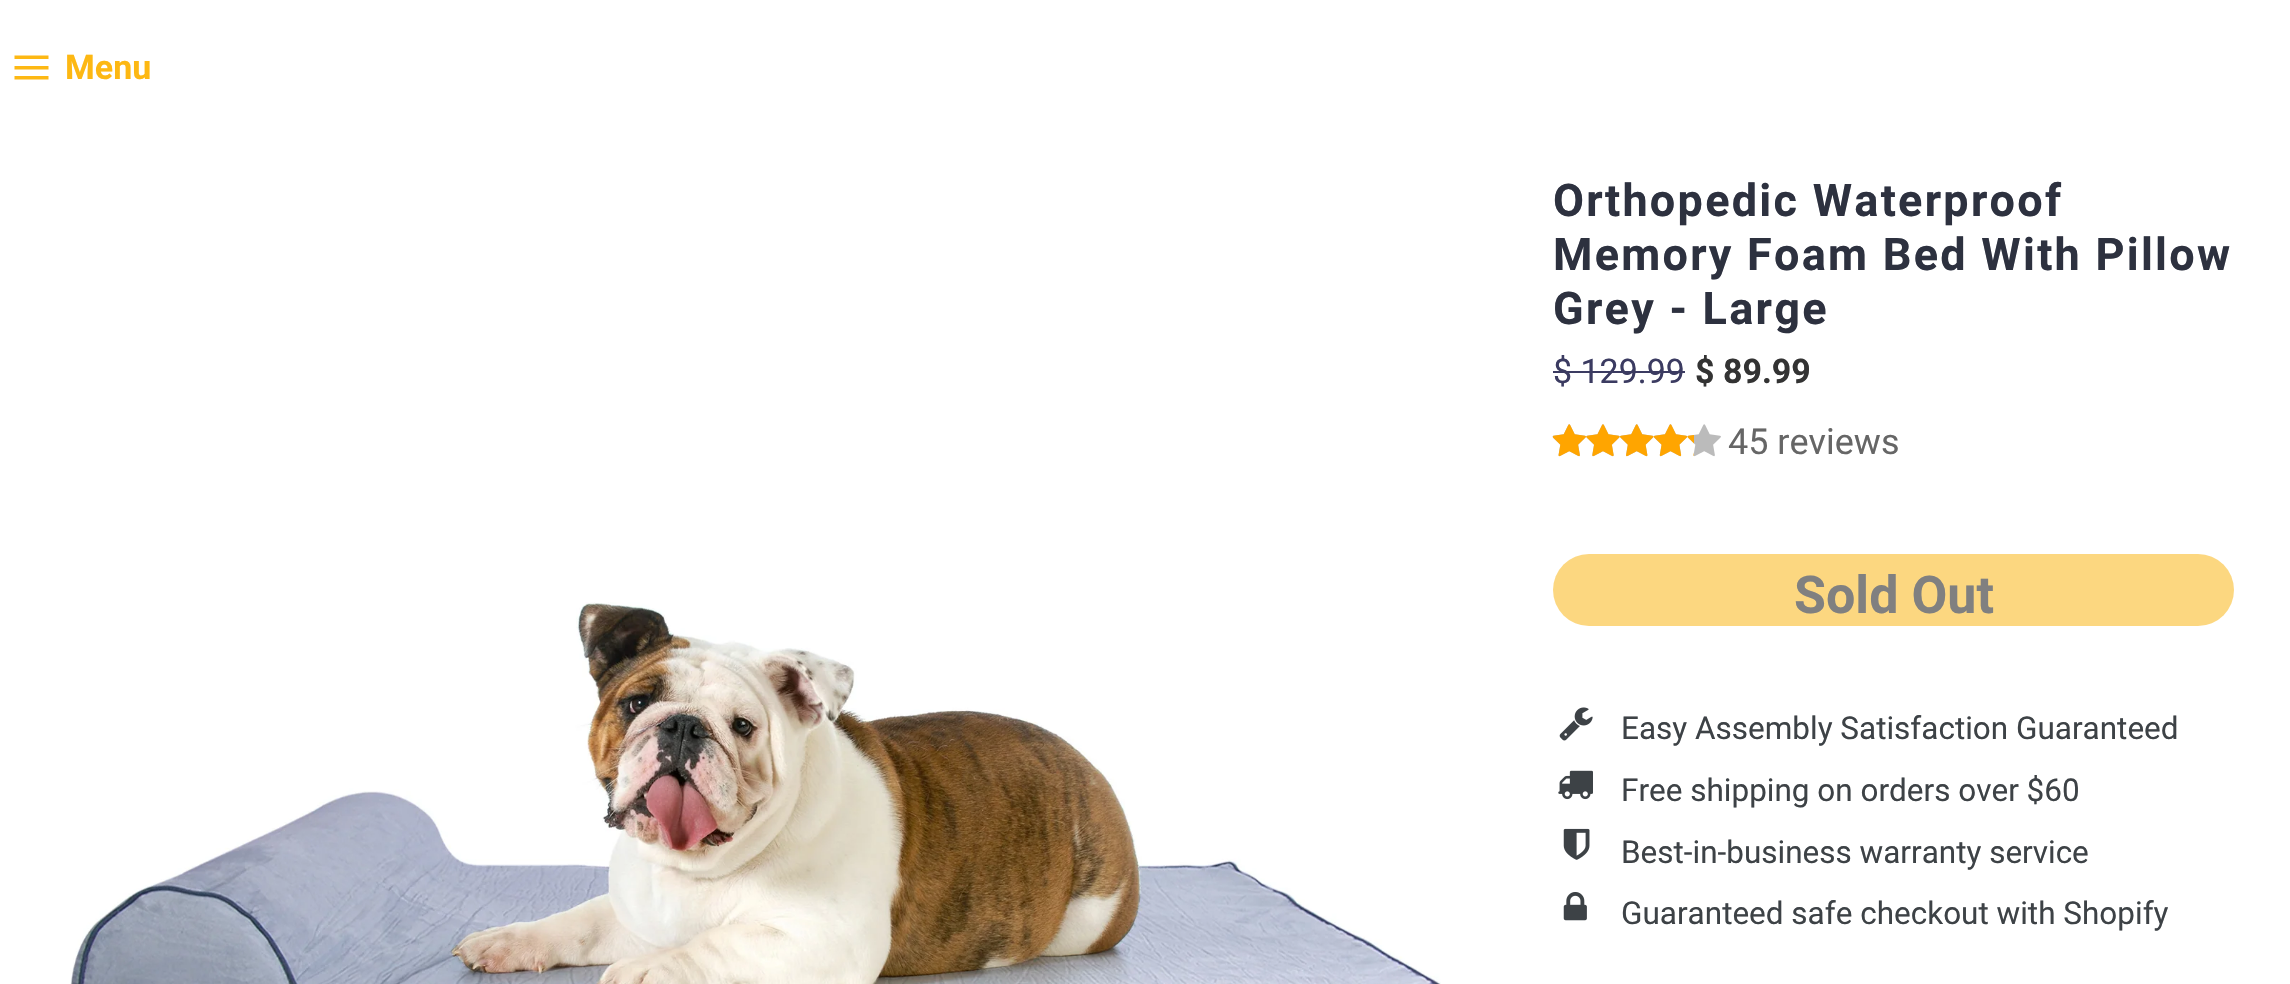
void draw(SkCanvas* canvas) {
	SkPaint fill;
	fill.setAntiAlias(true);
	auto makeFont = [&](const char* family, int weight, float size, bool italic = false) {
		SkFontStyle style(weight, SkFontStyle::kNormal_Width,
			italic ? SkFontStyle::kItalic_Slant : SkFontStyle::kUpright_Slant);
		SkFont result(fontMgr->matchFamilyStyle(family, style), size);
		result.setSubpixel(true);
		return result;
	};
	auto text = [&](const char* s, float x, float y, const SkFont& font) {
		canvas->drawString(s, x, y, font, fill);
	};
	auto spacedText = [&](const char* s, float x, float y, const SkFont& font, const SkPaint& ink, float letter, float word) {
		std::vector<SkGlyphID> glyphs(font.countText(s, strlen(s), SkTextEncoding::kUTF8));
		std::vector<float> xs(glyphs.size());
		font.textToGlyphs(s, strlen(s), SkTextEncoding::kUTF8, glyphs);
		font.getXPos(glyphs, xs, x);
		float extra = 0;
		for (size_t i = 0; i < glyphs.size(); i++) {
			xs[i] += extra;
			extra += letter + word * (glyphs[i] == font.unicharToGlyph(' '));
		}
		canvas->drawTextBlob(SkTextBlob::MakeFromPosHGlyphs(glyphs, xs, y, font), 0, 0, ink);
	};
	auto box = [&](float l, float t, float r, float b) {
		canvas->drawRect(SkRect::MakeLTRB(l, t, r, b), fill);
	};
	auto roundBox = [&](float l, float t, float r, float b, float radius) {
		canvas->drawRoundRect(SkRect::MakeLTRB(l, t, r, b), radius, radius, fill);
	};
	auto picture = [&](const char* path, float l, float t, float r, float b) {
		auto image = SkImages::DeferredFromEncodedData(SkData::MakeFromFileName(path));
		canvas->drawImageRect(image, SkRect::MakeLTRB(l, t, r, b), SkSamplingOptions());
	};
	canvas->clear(0xFFFFFFFF);
	fill.setColor(0xFFFDB813);
	canvas->drawPath(SkPathBuilder().moveTo(14.5f, 66).lineTo(48.5f, 66).lineTo(48.5f, 69.5f).lineTo(14.5f, 69.5f).close().moveTo(14.5f, 55.5f).lineTo(48.5f, 55.5f).lineTo(48.5f, 59).lineTo(14.5f, 59).close().moveTo(14.5f, 76).lineTo(48.5f, 76).lineTo(48.5f, 79.5f).lineTo(14.5f, 79.5f).close().detach(), fill);
	picture("image0.png", 70, 602, 1441, 984);
	fill.setColor(0xFF3B3B61);
	box(1553, 371, 1685, 373);
	picture("image1.png", 1552, 424, 1586, 457);
	picture("image2.png", 1553, 424, 1586, 457);
	picture("image7.png", 1586, 424, 1620, 457);
	picture("image3.png", 1586, 424, 1620, 457);
	picture("image8.png", 1620, 424, 1654, 457);
	picture("image9.png", 1653, 424, 1688, 457);
	picture("image4.png", 1620, 424, 1654, 457);
	picture("image10.png", 1687, 424, 1721, 457);
	picture("image5.png", 1653, 424, 1688, 457);
	picture("image6.png", 1687, 435, 1694, 456);
	fill.setColor(0xFFFCD780);
	roundBox(1553, 554, 2234, 626, 36);
	picture("image11.png", 1559, 707, 1593, 741);
	picture("image12.png", 1558, 770, 1593, 800);
	picture("image13.png", 1563, 828, 1590, 860);
	picture("image14.png", 1563, 892, 1587, 921);
	auto font1 = makeFont("Roboto", 700, 34);
	fill.setColor(0xFFFDB813);
	text("Menu", 65, 79, font1);
	auto font2 = makeFont("Roboto", 700, 45);
	fill.setColor(0xFF2D313F);
	spacedText("Orthopedic Waterproof", 1553, 216, font2, fill, 2.25f, 0);
	spacedText("Memory Foam Bed With Pillow", 1553, 270, font2, fill, 2.25f, 0);
	spacedText("Grey - Large", 1553, 324, font2, fill, 2.25f, 0);
	auto font3 = makeFont("Roboto", 400, 34);
	fill.setColor(0xFF3B3B61);
	text("$ 129.99", 1553, 383, font3);
	fill.setColor(0xFF333333);
	text("$ 89.99", 1695, 383, font1);
	auto font4 = makeFont("Roboto", 400, 36);
	fill.setColor(0xFF666666);
	text("45 reviews", 1728, 454, font4);
	auto font5 = makeFont("Roboto", 700, 52);
	fill.setColor(0xFF808080);
	text("Sold Out", 1794, 613, font5);
	auto font6 = makeFont("Roboto", 400, 31.5f);
	fill.setColor(0xFF3D4246);
	text("Easy Assembly Satisfaction Guaranteed", 1621, 739, font6);
	text("Free shipping on orders over $60", 1621, 801, font6);
	text("Best-in-business warranty service", 1621, 863, font6);
	text("Guaranteed safe checkout with Shopify", 1621, 924, font6);
}
